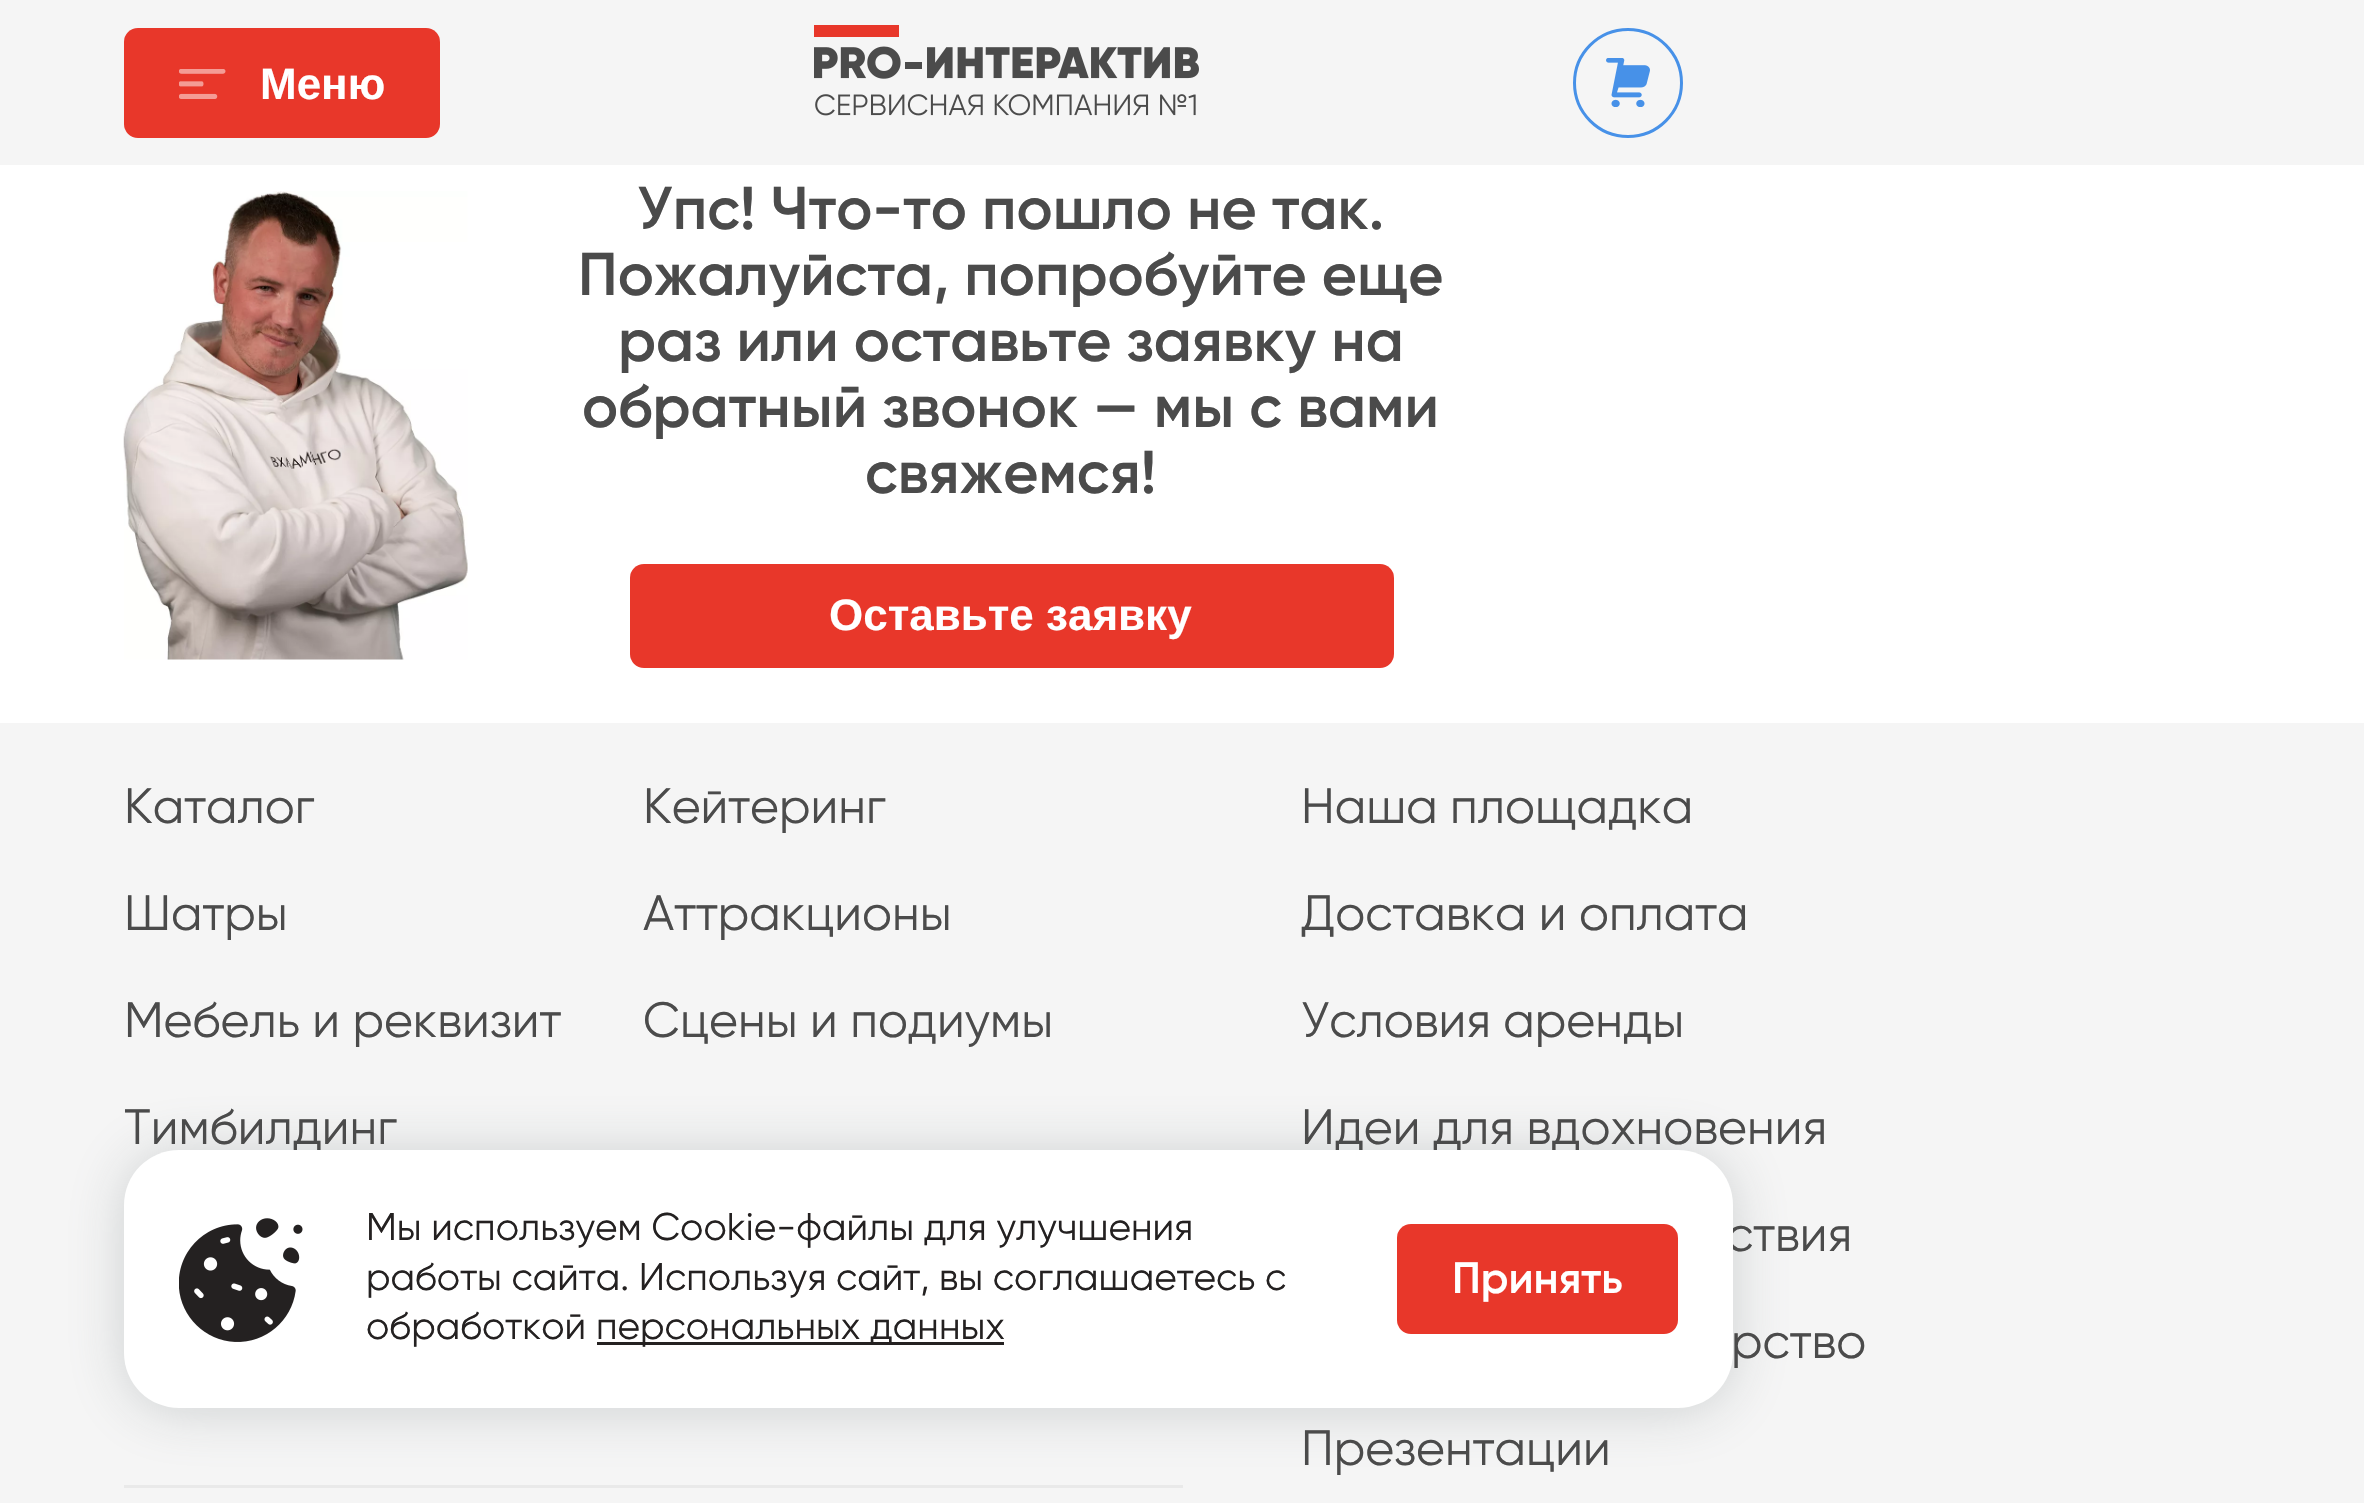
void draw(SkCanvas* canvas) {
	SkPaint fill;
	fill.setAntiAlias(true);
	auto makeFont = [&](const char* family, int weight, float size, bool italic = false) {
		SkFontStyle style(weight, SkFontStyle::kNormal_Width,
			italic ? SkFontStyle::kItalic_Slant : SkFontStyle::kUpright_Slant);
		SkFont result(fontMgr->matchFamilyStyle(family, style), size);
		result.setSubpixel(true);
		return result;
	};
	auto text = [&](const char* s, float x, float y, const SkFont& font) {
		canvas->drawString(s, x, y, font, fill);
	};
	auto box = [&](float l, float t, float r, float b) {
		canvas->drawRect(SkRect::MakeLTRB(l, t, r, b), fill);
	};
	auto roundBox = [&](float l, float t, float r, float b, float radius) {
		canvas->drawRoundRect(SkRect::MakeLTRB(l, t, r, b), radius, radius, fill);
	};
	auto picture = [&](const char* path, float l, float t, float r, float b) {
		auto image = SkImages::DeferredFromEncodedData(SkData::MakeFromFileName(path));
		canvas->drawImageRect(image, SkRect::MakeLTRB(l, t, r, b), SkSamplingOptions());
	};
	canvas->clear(0xFFFFFFFF);
	fill.setColor(0xFFF5F5F5);
	box(0, 0, 2364, 165);
	fill.setColor(0xFFE8372A);
	roundBox(124, 28, 440, 138, 14);
	picture("image0.png", 179, 69, 226, 99);
	picture("image1.png", 814, 25, 1199, 116);
	fill.setStyle(SkPaint::kStroke_Style);
	fill.setStrokeWidth(3);
	fill.setColor(0xFF4791E8);
	canvas->drawCircle(1628, 83, 53.5f, fill);
	picture("image2.png", 1606, 58, 1650, 107);
	picture("image3.png", 123, 191, 468, 660);
	fill.setStyle(SkPaint::kFill_Style);
	fill.setColor(0xFFE8372A);
	roundBox(630, 564, 1394, 668, 14);
	fill.setColor(0xFFF5F5F5);
	box(0, 723, 2364, 1503);
	fill.setColor(0xFFE9E9E9);
	box(124, 1485, 1183, 1488);
	fill.setColor(0x52788487);
	fill.setMaskFilter(SkMaskFilter::MakeBlur(kNormal_SkBlurStyle, 27.5f));
	canvas->drawRoundRect(SkRect::MakeLTRB(124, 1152, 1733, 1411), 55, 55, fill);
	fill.setMaskFilter(nullptr);
	auto font1 = makeFont("Liberation Sans", 700, 44);
	fill.setColor(0xFFFFFFFF);
	text("Меню", 260, 99, font1);
	auto font2 = makeFont("Gilroy", 600, 60.5f);
	fill.setColor(0xFF4B4B4B);
	text("Упс! Что-то пошло не так.", 637, 229, font2);
	text("Пожалуйста, попробуйте еще", 578, 295, font2);
	text("раз или оставьте заявку на", 618, 361, font2);
	text("обратный звонок — мы с вами", 582, 427, font2);
	text("свяжемся!", 865, 493, font2);
	fill.setColor(0xFFFFFFFF);
	text("Оставьте заявку", 829, 630, font1);
	auto font3 = makeFont("Gilroy", 400, 49.5f);
	fill.setColor(0xFF4B4B4B);
	text("Каталог", 124, 823, font3);
	text("Кейтеринг", 643, 823, font3);
	text("Шатры", 124, 930, font3);
	text("Аттракционы", 643, 930, font3);
	text("Мебель и реквизит", 124, 1037, font3);
	text("Сцены и подиумы", 643, 1037, font3);
	text("Тимбилдинг", 124, 1144, font3);
	text("Наша площадка", 1301, 823, font3);
	text("Доставка и оплата", 1301, 930, font3);
	text("Условия аренды", 1301, 1037, font3);
	text("Идеи для вдохновения", 1301, 1144, font3);
	text("ствия", 1726, 1251, font3);
	text("рство", 1731, 1358, font3);
	text("Презентации", 1301, 1465, font3);
	fill.setColor(0xFFFFFFFF);
	roundBox(124, 1150, 1733, 1408, 55);
	picture("image4.png", 179, 1218, 303, 1342);
	auto font4 = makeFont("Gilroy", 400, 38.5f);
	fill.setColor(0xFF242121);
	text("Мы используем Cookie-файлы для улучшения", 366, 1240, font4);
	text("работы сайта. Используя сайт, вы соглашаетесь с", 366, 1290, font4);
	text("обработкой", 366, 1339, font4);
	box(597, 1342, 1004, 1345);
	text("персональных данных", 596, 1339, font4);
	fill.setColor(0xFFE8372A);
	roundBox(1397, 1224, 1678, 1334, 14);
	auto font5 = makeFont("Gilroy", 600, 44);
	fill.setColor(0xFFFFFFFF);
	text("Принять", 1452, 1293, font5);
}
